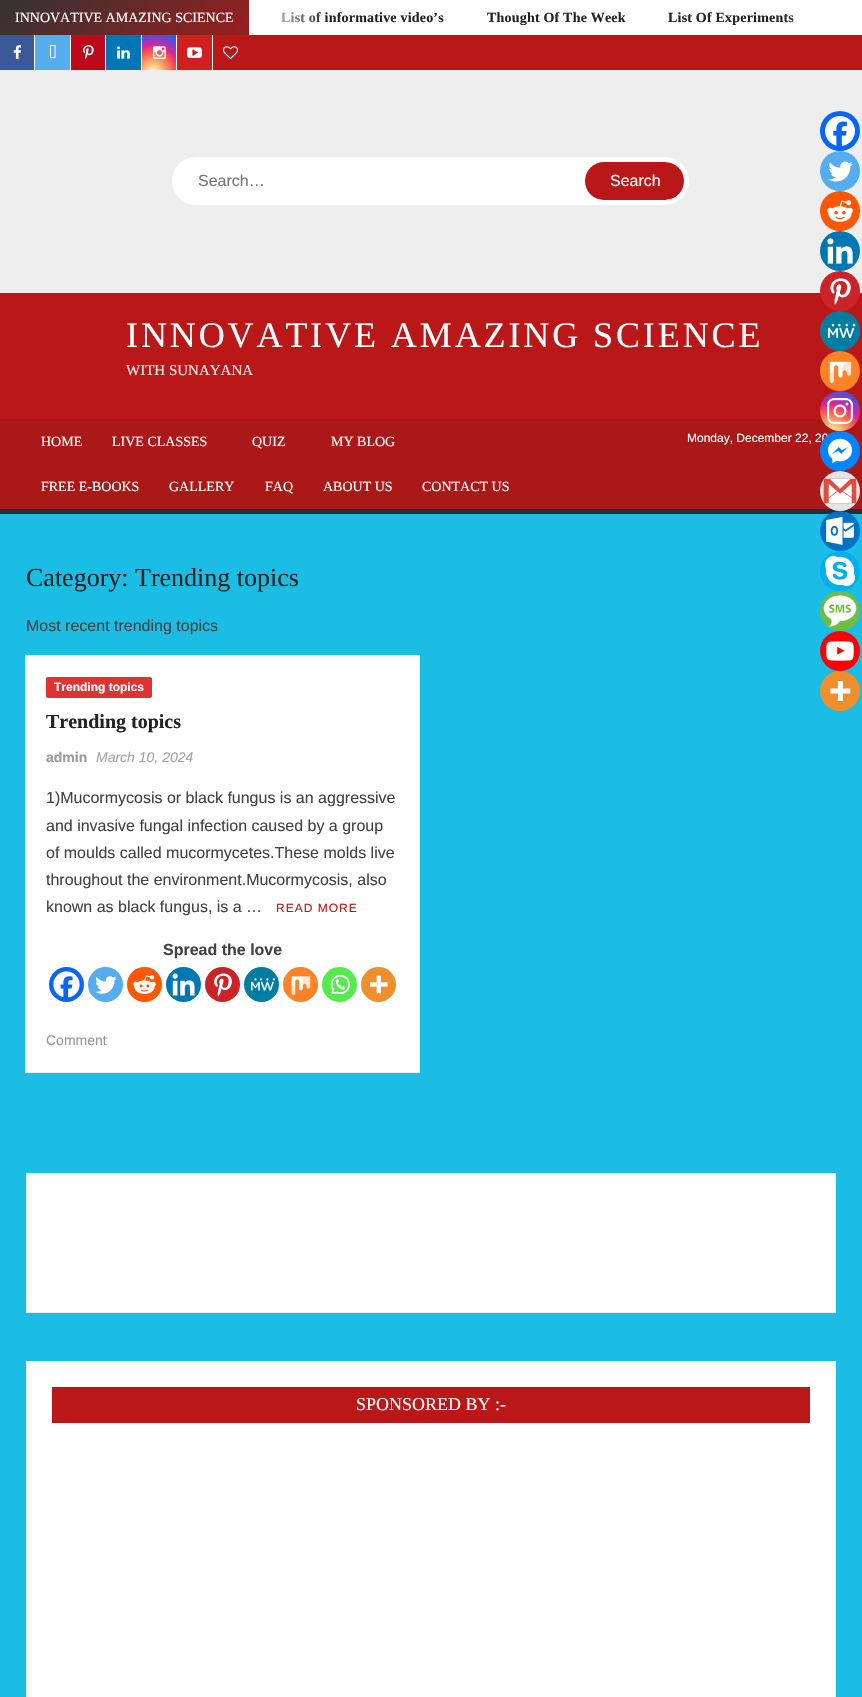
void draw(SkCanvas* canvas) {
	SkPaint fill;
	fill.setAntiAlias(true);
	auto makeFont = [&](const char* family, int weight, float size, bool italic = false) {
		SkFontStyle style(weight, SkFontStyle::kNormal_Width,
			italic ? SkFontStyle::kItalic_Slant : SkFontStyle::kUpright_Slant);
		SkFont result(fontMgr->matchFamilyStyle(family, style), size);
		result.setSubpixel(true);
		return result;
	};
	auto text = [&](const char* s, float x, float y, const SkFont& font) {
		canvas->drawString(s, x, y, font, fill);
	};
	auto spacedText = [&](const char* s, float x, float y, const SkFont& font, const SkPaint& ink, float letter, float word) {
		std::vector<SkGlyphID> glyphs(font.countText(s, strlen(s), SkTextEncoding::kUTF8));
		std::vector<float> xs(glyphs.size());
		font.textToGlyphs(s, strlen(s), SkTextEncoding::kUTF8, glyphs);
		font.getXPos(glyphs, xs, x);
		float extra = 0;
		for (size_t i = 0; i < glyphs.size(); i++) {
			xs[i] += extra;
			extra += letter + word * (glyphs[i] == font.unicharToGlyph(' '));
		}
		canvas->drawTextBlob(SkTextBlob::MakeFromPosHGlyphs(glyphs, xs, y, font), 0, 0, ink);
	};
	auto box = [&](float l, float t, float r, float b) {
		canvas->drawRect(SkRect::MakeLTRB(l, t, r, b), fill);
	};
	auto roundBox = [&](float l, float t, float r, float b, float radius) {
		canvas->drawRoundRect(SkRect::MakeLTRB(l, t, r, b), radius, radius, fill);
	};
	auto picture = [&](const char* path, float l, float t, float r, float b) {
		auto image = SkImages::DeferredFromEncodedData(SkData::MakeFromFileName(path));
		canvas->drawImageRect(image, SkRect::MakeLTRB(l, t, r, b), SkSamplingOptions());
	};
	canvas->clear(0xFF1BBDE5);
	fill.setColor(0xFFFFFFFF);
	box(249, 0, 862, 35);
	{
		const SkColor colors[] = {0xFFBA1818, 0xFFEEEEEE, 0xFFBA1818, 0xFF333333};
		const float stops[] = {0, 0.33f, 0.67f, 1};
		const SkPoint ends[] = {{782, 354}, {214, -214}};
		fill.setShader(SkGradientShader::MakeLinear(ends, colors, stops, 4, SkTileMode::kClamp));
		fill.setAlpha(255);
	}
	box(0, 0, 249, 35);
	fill.setShader(nullptr);
	fill.setColor(0xFFBA1818);
	box(213, 35, 862, 70);
	fill.setColor(0xFF3B5999);
	box(0, 35, 34, 70);
	picture("image0.png", 13, 45, 22, 60);
	fill.setColor(0xFFFFFFFF);
	box(34, 35, 35, 70);
	fill.setColor(0xFF55ACEE);
	box(35, 35, 70, 70);
	picture("image1.png", 49, 45, 56, 58);
	fill.setColor(0xFFFFFFFF);
	box(70, 35, 71, 70);
	fill.setColor(0xFFBD081C);
	box(71, 35, 105, 70);
	picture("image2.png", 83, 45, 94, 59);
	fill.setColor(0xFFFFFFFF);
	box(105, 35, 106, 70);
	fill.setColor(0xFF0077B5);
	box(106, 35, 141, 70);
	picture("image3.png", 117, 46, 130, 59);
	fill.setColor(0xFFFFFFFF);
	box(141, 35, 142, 70);
	{
		const SkColor colors[] = {0xFFFDF497, 0xFFFDF497, 0xFFFD5949, 0xFFD6249F, 0xFF285AEB};
		const float stops[] = {0, 0.05f, 0.45f, 0.6f, 0.9f};
		fill.setShader(SkGradientShader::MakeRadial({153, 72}, 45, colors, stops, 5, SkTileMode::kClamp));
		fill.setAlpha(255);
	}
	box(142, 35, 176, 70);
	picture("image4.png", 153, 46, 166, 60);
	fill.setShader(nullptr);
	fill.setColor(0xFFFFFFFF);
	box(176, 35, 177, 70);
	fill.setColor(0xFFCD201F);
	box(177, 35, 212, 70);
	picture("image5.png", 187, 47, 202, 58);
	fill.setColor(0xFFFFFFFF);
	box(212, 35, 213, 70);
	picture("image6.png", 223, 46, 238, 59);
	fill.setColor(0xFFEEEEEE);
	box(0, 70, 862, 293);
	fill.setColor(0xFFFFFFFF);
	roundBox(172, 157, 689, 205, 24);
	canvas->save();
	canvas->clipPath(SkPathBuilder().moveTo(196, 162).lineTo(665, 162).cubicTo(675.5f, 162, 684, 170.5f, 684, 181).cubicTo(684, 191.5f, 675.5f, 200, 665, 200).lineTo(196, 200).cubicTo(185.5f, 200, 177, 191.5f, 177, 181).cubicTo(177, 170.5f, 185.5f, 162, 196, 162).close().detach(), true);
	fill.setColor(0xFFBA1818);
	roundBox(585, 162, 685, 200, 19);
	canvas->restore();
	box(0, 293, 862, 419);
	fill.setColor(0xFFAA1818);
	box(0, 419, 862, 509);
	fill.setColor(0xFF2C2C2C);
	box(0, 509, 862, 514);
	fill.setColor(0xFFFFFFFF);
	canvas->drawRect(SkRect::MakeLTRB(25.5f, 655.5f, 419.5f, 1072.5f), fill);
	fill.setStyle(SkPaint::kStroke_Style);
	fill.setStrokeWidth(1);
	fill.setColor(0xFFEEEEEE);
	canvas->drawRect(SkRect::MakeLTRB(25.5f, 655.5f, 419.5f, 1072.5f), fill);
	fill.setStyle(SkPaint::kFill_Style);
	fill.setColor(0xFFDD3333);
	roundBox(46, 677, 152, 698, 2);
	fill.setColor(0xFF0765FE);
	canvas->drawCircle(840, 131, 20, fill);
	picture("image7.png", 825, 116, 855, 146);
	fill.setColor(0xFF55ACEE);
	canvas->drawCircle(840, 171, 20, fill);
	picture("image8.png", 828, 161, 853, 182);
	fill.setColor(0xFFFF5700);
	canvas->drawCircle(840, 211, 20, fill);
	picture("image9.png", 827, 200, 853, 222);
	fill.setColor(0xFF0077B5);
	canvas->drawCircle(840, 251, 20, fill);
	picture("image10.png", 827, 238, 853, 264);
	fill.setColor(0xFFCC2329);
	canvas->drawCircle(840, 291, 20, fill);
	picture("image11.png", 830, 278, 851, 305);
	fill.setColor(0xFF007DA1);
	canvas->drawCircle(840, 331, 20, fill);
	picture("image12.png", 828, 323, 856, 339);
	fill.setColor(0xFFFF8226);
	canvas->drawCircle(840, 371, 20, fill);
	picture("image13.png", 829, 361, 852, 383);
	{
		const SkColor colors[] = {0xFFFDF497, 0xFFFDF497, 0xFFFD5949, 0xFFD6249F, 0xFF285AEB};
		const float stops[] = {0, 0.05f, 0.45f, 0.6f, 0.9f};
		fill.setShader(SkGradientShader::MakeRadial({832, 434}, 51, colors, stops, 5, SkTileMode::kClamp));
		fill.setAlpha(255);
	}
	canvas->drawCircle(840, 411, 20, fill);
	picture("image14.png", 827, 398, 853, 424);
	fill.setShader(nullptr);
	fill.setColor(0xFFE5E5E5);
	canvas->drawCircle(840, 491, 20, fill);
	picture("image16.png", 823, 478, 857, 504);
	fill.setColor(0xFF0072C6);
	canvas->drawCircle(840, 531, 20, fill);
	picture("image17.png", 826, 516, 854, 545);
	fill.setColor(0xFF00AFF0);
	canvas->drawCircle(840, 571, 20, fill);
	picture("image18.png", 825, 556, 855, 586);
	fill.setColor(0xFF6EBE45);
	canvas->drawCircle(840, 611, 20, fill);
	picture("image19.png", 823, 595, 857, 627);
	fill.setColor(0xFFFF0000);
	canvas->drawCircle(840, 651, 20, fill);
	picture("image20.png", 826, 641, 854, 661);
	fill.setColor(0xFFEE8E2D);
	canvas->drawCircle(840, 691, 20, fill);
	picture("image21.png", 830, 681, 851, 701);
	fill.setColor(0xFF0765FE);
	canvas->drawCircle(66.5f, 984.5f, 17.5f, fill);
	picture("image22.png", 53, 971, 80, 998);
	fill.setColor(0xFF55ACEE);
	canvas->drawCircle(105.5f, 984.5f, 17.5f, fill);
	picture("image23.png", 95, 976, 117, 994);
	fill.setColor(0xFFFF5700);
	canvas->drawCircle(144.5f, 984.5f, 17.5f, fill);
	picture("image24.png", 133, 975, 156, 994);
	fill.setColor(0xFF0077B5);
	canvas->drawCircle(183.5f, 984.5f, 17.5f, fill);
	picture("image25.png", 172, 973, 195, 996);
	fill.setColor(0xFFCC2329);
	canvas->drawCircle(222.5f, 984.5f, 17.5f, fill);
	picture("image26.png", 214, 973, 232, 997);
	fill.setColor(0xFF007DA1);
	canvas->drawCircle(261.5f, 984.5f, 17.5f, fill);
	picture("image27.png", 251, 978, 275, 991);
	fill.setColor(0xFFFF8226);
	canvas->drawCircle(300.5f, 984.5f, 17.5f, fill);
	picture("image28.png", 291, 976, 311, 995);
	fill.setColor(0xFF55EB4C);
	canvas->drawCircle(339.5f, 984.5f, 17.5f, fill);
	picture("image29.png", 330, 974, 350, 995);
	fill.setColor(0xFFEE8E2D);
	canvas->drawCircle(378.5f, 984.5f, 17.5f, fill);
	picture("image30.png", 370, 975, 388, 994);
	fill.setColor(0xFFFFFFFF);
	canvas->drawRect(SkRect::MakeLTRB(26.5f, 1173.5f, 835.5f, 1312.5f), fill);
	fill.setStyle(SkPaint::kStroke_Style);
	fill.setColor(0xFFEEEEEE);
	canvas->drawRect(SkRect::MakeLTRB(26.5f, 1173.5f, 835.5f, 1312.5f), fill);
	fill.setStyle(SkPaint::kFill_Style);
	fill.setColor(0xFFFFFFFF);
	canvas->drawRect(SkRect::MakeLTRB(26.5f, 1361.5f, 835.5f, 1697.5f), fill);
	fill.setStyle(SkPaint::kStroke_Style);
	fill.setColor(0xFFEEEEEE);
	canvas->drawRect(SkRect::MakeLTRB(26.5f, 1361.5f, 835.5f, 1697.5f), fill);
	fill.setStyle(SkPaint::kFill_Style);
	fill.setColor(0xFFBA1818);
	box(52, 1387, 810, 1423);
	auto font1 = makeFont("Liberation Serif", 400, 14);
	fill.setColor(0xFFFFFFFF);
	text("INNOVATIVE AMAZING SCIENCE", 15, 22, font1);
	auto font2 = makeFont("Liberation Serif", 700, 14);
	fill.setColor(0xFF222222);
	spacedText("List of informative video’s", 281, 22, font2, fill, 0.2f, 0);
	{
		const SkColor colors[] = {0xFFFFFFFF, 0x00FFFFFF};
		const float stops[] = {0, 1};
		const SkPoint ends[] = {{249, 18}, {329, 17}};
		fill.setShader(SkGradientShader::MakeLinear(ends, colors, stops, 2, SkTileMode::kClamp));
		fill.setAlpha(255);
	}
	box(281, 12, 327, 23);
	fill.setShader(nullptr);
	fill.setColor(0xFF222222);
	spacedText("Thought Of The Week", 487, 22, font2, fill, 0.2f, 0);
	spacedText("List Of Experiments", 668, 22, font2, fill, 0.2f, 0);
	{
		const SkColor colors[] = {0x00FFFFFF, 0xFFFFFFFF};
		const float stops[] = {0, 1};
		const SkPoint ends[] = {{782, 18}, {862, 17}};
		fill.setShader(SkGradientShader::MakeLinear(ends, colors, stops, 2, SkTileMode::kClamp));
		fill.setAlpha(255);
	}
	box(784, 14, 793, 22);
	auto font3 = makeFont("Liberation Sans", 400, 16);
	fill.setShader(nullptr);
	fill.setColor(0xFF757575);
	text("Search…", 198, 186, font3);
	fill.setColor(0xFFFFFFFF);
	text("Search", 610, 186, font3);
	auto font4 = makeFont("Liberation Serif", 400, 36);
	spacedText("INNOVATIVE AMAZING SCIENCE", 126, 347, font4, fill, 2.9f, 0);
	auto font5 = makeFont("Liberation Serif", 400, 15);
	fill.setColor(0xFFEEEEEE);
	text("WITH SUNAYANA", 126, 375, font5);
	fill.setColor(0xFFFFFFFF);
	text("HOME", 41, 446, font1);
	text("LIVE CLASSES", 112, 446, font1);
	text("QUIZ", 252, 446, font1);
	text("MY BLOG", 331, 446, font1);
	text("FREE E-BOOKS", 41, 491, font1);
	text("GALLERY", 169, 491, font1);
	text("FAQ", 265, 491, font1);
	text("ABOUT US", 323, 491, font1);
	text("CONTACT US", 422, 491, font1);
	auto font6 = makeFont("Liberation Sans", 400, 12);
	text("Monday, December 22, 20", 687, 442, font6);
	auto font7 = makeFont("Liberation Serif", 400, 26);
	fill.setColor(0xFF222222);
	text("Category: Trending topics", 26, 586, font7);
	fill.setColor(0xFF424242);
	text("Most recent trending topics", 26, 631, font3);
	auto font8 = makeFont("Liberation Sans", 700, 12);
	fill.setColor(0xFFFFFFFF);
	text("Trending topics", 54, 691, font8);
	auto font9 = makeFont("Liberation Serif", 700, 20);
	fill.setColor(0xFF222222);
	text("Trending topics", 46, 728, font9);
	auto font10 = makeFont("Liberation Sans", 700, 14);
	fill.setColor(0xFF999999);
	text("admin", 46, 762, font10);
	auto font11 = makeFont("Liberation Sans", 400, 14, true);
	fill.setColor(0xFFA4A4A4);
	text("March 10, 2024", 96, 762, font11);
	fill.setColor(0xFF0084FF);
	canvas->drawCircle(840, 451, 20, fill);
	picture("image15.png", 827, 438, 853, 464);
	fill.setColor(0xFF424242);
	text("1)Mucormycosis or black fungus is an aggressive", 46, 803, font3);
	text("and invasive fungal infection caused by a group", 46, 831, font3);
	text("of moulds called mucormycetes.These molds live", 46, 858, font3);
	text("throughout the environment.Mucormycosis, also", 46, 885, font3);
	text("known as black fungus, is a …", 46, 912, font3);
	fill.setColor(0xFFBA1818);
	spacedText("READ MORE", 276, 912, font6, fill, 1, 0);
	auto font12 = makeFont("Liberation Sans", 700, 16);
	fill.setColor(0xFF424242);
	text("Spread the love", 163, 955, font12);
	auto font13 = makeFont("Liberation Sans", 400, 14);
	fill.setColor(0xFF999999);
	text("Comment", 46, 1045, font13);
	auto font14 = makeFont("Liberation Serif", 400, 18);
	fill.setColor(0xFFFFFFFF);
	text("SPONSORED BY :-", 356, 1410, font14);
}
